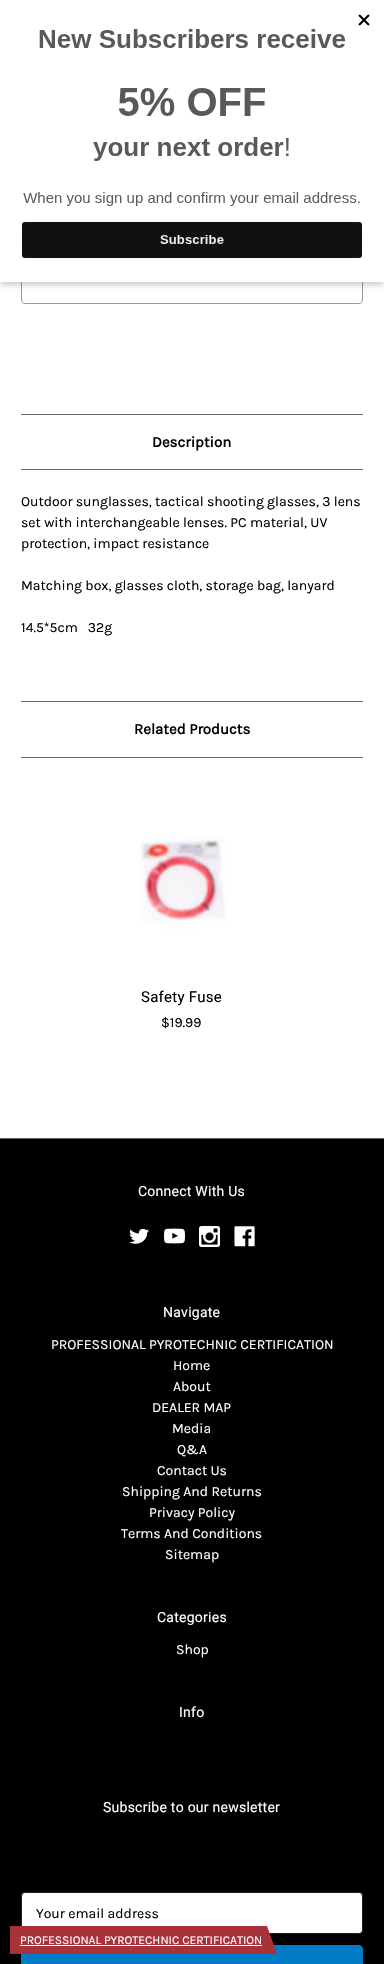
void draw(SkCanvas* canvas) {
	SkPaint fill;
	fill.setAntiAlias(true);
	auto makeFont = [&](const char* family, int weight, float size, bool italic = false) {
		SkFontStyle style(weight, SkFontStyle::kNormal_Width,
			italic ? SkFontStyle::kItalic_Slant : SkFontStyle::kUpright_Slant);
		SkFont result(fontMgr->matchFamilyStyle(family, style), size);
		result.setSubpixel(true);
		return result;
	};
	auto text = [&](const char* s, float x, float y, const SkFont& font) {
		canvas->drawString(s, x, y, font, fill);
	};
	auto spacedText = [&](const char* s, float x, float y, const SkFont& font, const SkPaint& ink, float letter, float word) {
		std::vector<SkGlyphID> glyphs(font.countText(s, strlen(s), SkTextEncoding::kUTF8));
		std::vector<float> xs(glyphs.size());
		font.textToGlyphs(s, strlen(s), SkTextEncoding::kUTF8, glyphs);
		font.getXPos(glyphs, xs, x);
		float extra = 0;
		for (size_t i = 0; i < glyphs.size(); i++) {
			xs[i] += extra;
			extra += letter + word * (glyphs[i] == font.unicharToGlyph(' '));
		}
		canvas->drawTextBlob(SkTextBlob::MakeFromPosHGlyphs(glyphs, xs, y, font), 0, 0, ink);
	};
	auto box = [&](float l, float t, float r, float b) {
		canvas->drawRect(SkRect::MakeLTRB(l, t, r, b), fill);
	};
	auto picture = [&](const char* path, float l, float t, float r, float b) {
		auto image = SkImages::DeferredFromEncodedData(SkData::MakeFromFileName(path));
		canvas->drawImageRect(image, SkRect::MakeLTRB(l, t, r, b), SkSamplingOptions());
	};
	canvas->clear(0xFFFFFFFF);
	fill.setStyle(SkPaint::kStroke_Style);
	fill.setStrokeWidth(1);
	fill.setColor(0xFF999999);
	canvas->drawRoundRect(SkRect::MakeLTRB(21.5f, 262.5f, 362.5f, 303.5f), 3.5f, 3.5f, fill);
	fill.setStyle(SkPaint::kFill_Style);
	fill.setColor(0x33000000);
	fill.setMaskFilter(SkMaskFilter::MakeBlur(kNormal_SkBlurStyle, 3));
	canvas->drawRect(SkRect::MakeLTRB(0, 3, 384, 285), fill);
	fill.setMaskFilter(nullptr);
	fill.setColor(0xFFFFFFFF);
	box(0, 0, 384, 282);
	picture("image0.png", 22, 14, 370, 258);
	fill.setColor(0xFF666666);
	box(21, 469, 363, 470);
	box(21, 414, 363, 415);
	box(21, 757, 363, 758);
	box(21, 701, 363, 702);
	picture("image1.png", 139, 837, 226, 930);
	fill.setColor(0xFF000000);
	box(0, 1139, 384, 1964);
	fill.setColor(0xFF666666);
	box(0, 1138, 384, 1139);
	picture("image2.png", 129, 1228, 150, 1244);
	picture("image3.png", 164, 1228, 185, 1244);
	picture("image4.png", 199, 1226, 220, 1247);
	picture("image5.png", 234, 1226, 255, 1247);
	fill.setColor(0xFFFFFFFF);
	canvas->drawRoundRect(SkRect::MakeLTRB(21.5f, 1892.5f, 362.5f, 1933.5f), 3.5f, 3.5f, fill);
	fill.setStyle(SkPaint::kStroke_Style);
	fill.setColor(0xFF222222);
	canvas->drawRoundRect(SkRect::MakeLTRB(21.5f, 1892.5f, 362.5f, 1933.5f), 3.5f, 3.5f, fill);
	fill.setStyle(SkPaint::kFill_Style);
	fill.setColor(0xFF007DC6);
	canvas->drawRoundRect(SkRect::MakeLTRB(21.5f, 1945.5f, 362.5f, 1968.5f), 3.5f, 3.5f, fill);
	fill.setStyle(SkPaint::kStroke_Style);
	canvas->drawRoundRect(SkRect::MakeLTRB(21.5f, 1945.5f, 362.5f, 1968.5f), 3.5f, 3.5f, fill);
	fill.setStyle(SkPaint::kFill_Style);
	fill.setColor(0xFFA8323A);
	canvas->drawPath(SkPathBuilder().moveTo(10, 1926).lineTo(10, 1954).lineTo(277, 1954).lineTo(267, 1926).close().detach(), fill);
	fill.setColor(0xFFFFFFFF);
	box(20, 1945, 262, 1946);
	auto font1 = makeFont("Karla", 700, 15);
	fill.setColor(0xFF000000);
	text("Description", 152, 447, font1);
	auto font2 = makeFont("Karla", 400, 14);
	text("Outdoor sunglasses, tactical shooting glasses, 3 lens", 21, 506, font2);
	text("set with interchangeable lenses. PC material, UV", 21, 527, font2);
	text("protection, impact resistance", 21, 548, font2);
	text("Matching box, glasses cloth, storage bag, lanyard", 21, 590, font2);
	text("14.5*5cm   32g", 21, 632, font2);
	text("Related Products", 134, 734, font1);
	auto font3 = makeFont("Roboto", 400, 15);
	spacedText("Safety Fuse", 141, 1002, font3, fill, 0.25f, 0);
	text("$19.99", 161, 1027, font2);
	auto font4 = makeFont("Roboto", 400, 14);
	fill.setColor(0xFFFFFFFF);
	spacedText("Connect With Us", 138, 1196, font4, fill, 0.25f, 0);
	spacedText("Navigate", 163, 1317, font4, fill, 0.25f, 0);
	text("PROFESSIONAL PYROTECHNIC CERTIFICATION", 51, 1349, font2);
	text("Home", 173, 1370, font2);
	text("About", 173, 1391, font2);
	text("DEALER MAP", 152, 1412, font2);
	text("Media", 172, 1433, font2);
	text("Q&A", 177, 1454, font2);
	text("Contact Us", 157, 1475, font2);
	text("Shipping And Returns", 122, 1496, font2);
	text("Privacy Policy", 149, 1517, font2);
	text("Terms And Conditions", 121, 1538, font2);
	text("Sitemap", 165, 1559, font2);
	spacedText("Categories", 157, 1622, font4, fill, 0.25f, 0);
	text("Shop", 176, 1654, font2);
	spacedText("Info", 179, 1717, font4, fill, 0.25f, 0);
	spacedText("Subscribe to our newsletter", 103, 1812, font4, fill, 0.25f, 0);
	fill.setColor(0xFF000000);
	text("Your email address", 36, 1918, font2);
	auto font5 = makeFont("Karla", 400, 12);
	fill.setColor(0xFFFFFFFF);
	text("PROFESSIONAL PYROTECHNIC CERTIFICATION", 20, 1944, font5);
}
